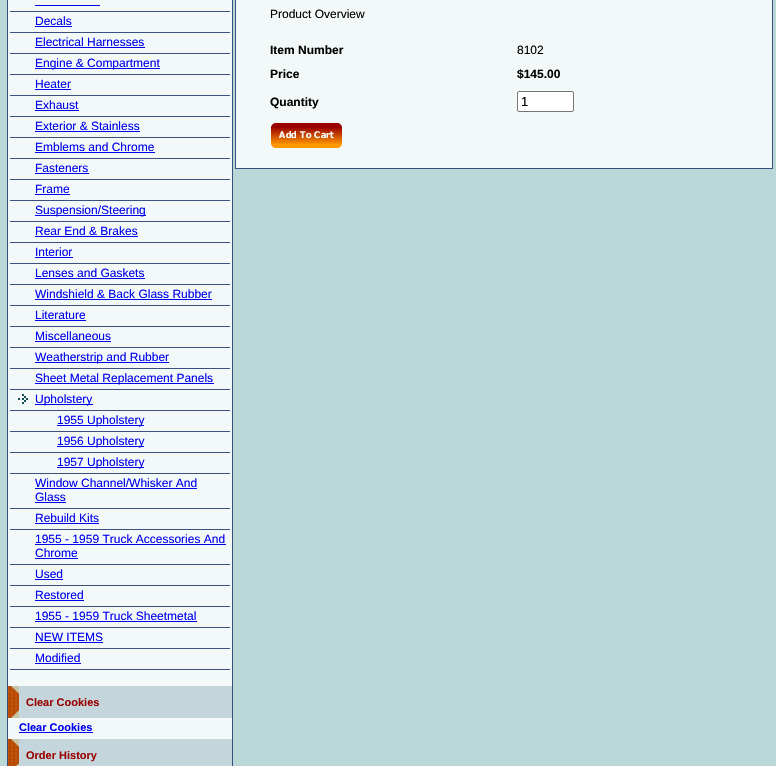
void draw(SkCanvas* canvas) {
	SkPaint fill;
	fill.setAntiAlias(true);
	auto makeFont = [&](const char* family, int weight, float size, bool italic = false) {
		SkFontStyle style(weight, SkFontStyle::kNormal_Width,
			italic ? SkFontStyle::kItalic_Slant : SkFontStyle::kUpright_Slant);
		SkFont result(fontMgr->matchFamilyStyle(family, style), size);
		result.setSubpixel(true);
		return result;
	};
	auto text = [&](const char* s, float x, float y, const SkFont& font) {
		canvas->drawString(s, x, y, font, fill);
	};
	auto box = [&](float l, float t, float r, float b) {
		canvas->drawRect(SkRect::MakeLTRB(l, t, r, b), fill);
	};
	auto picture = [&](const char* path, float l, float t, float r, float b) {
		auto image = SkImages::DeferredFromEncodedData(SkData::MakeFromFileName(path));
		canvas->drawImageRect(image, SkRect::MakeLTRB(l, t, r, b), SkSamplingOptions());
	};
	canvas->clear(0xFFBBD8D9);
	fill.setColor(0xFFF2F9F8);
	box(8, 0, 232, 739);
	fill.setStyle(SkPaint::kStroke_Style);
	fill.setStrokeWidth(1);
	fill.setColor(0xFF3C5080);
	canvas->drawRect(SkRect::MakeLTRB(7.5f, -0.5f, 232.5f, 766.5f), fill);
	fill.setStyle(SkPaint::kFill_Style);
	fill.setColor(0xFF0000EE);
	box(35, 5, 100, 6);
	fill.setColor(0xFF3C5080);
	box(10, 11, 230, 12);
	fill.setColor(0xFF0000EE);
	box(35, 26, 72, 27);
	fill.setColor(0xFF3C5080);
	box(10, 32, 230, 33);
	fill.setColor(0xFF0000EE);
	box(35, 47, 145, 48);
	fill.setColor(0xFF3C5080);
	box(10, 53, 230, 54);
	fill.setColor(0xFF0000EE);
	box(35, 68, 160, 69);
	fill.setColor(0xFF3C5080);
	box(10, 74, 230, 75);
	fill.setColor(0xFF0000EE);
	box(35, 89, 71, 90);
	fill.setColor(0xFF3C5080);
	box(10, 95, 230, 96);
	fill.setColor(0xFF0000EE);
	box(35, 110, 79, 111);
	fill.setColor(0xFF3C5080);
	box(10, 116, 230, 117);
	fill.setColor(0xFF0000EE);
	box(35, 131, 140, 132);
	fill.setColor(0xFF3C5080);
	box(10, 137, 230, 138);
	fill.setColor(0xFF0000EE);
	box(35, 152, 155, 153);
	fill.setColor(0xFF3C5080);
	box(10, 158, 230, 159);
	fill.setColor(0xFF0000EE);
	box(35, 173, 89, 174);
	fill.setColor(0xFF3C5080);
	box(10, 179, 230, 180);
	fill.setColor(0xFF0000EE);
	box(35, 194, 70, 195);
	fill.setColor(0xFF3C5080);
	box(10, 200, 230, 201);
	fill.setColor(0xFF0000EE);
	box(35, 215, 146, 216);
	fill.setColor(0xFF3C5080);
	box(10, 221, 230, 222);
	fill.setColor(0xFF0000EE);
	box(35, 236, 138, 237);
	fill.setColor(0xFF3C5080);
	box(10, 242, 230, 243);
	fill.setColor(0xFF0000EE);
	box(35, 257, 73, 258);
	fill.setColor(0xFF3C5080);
	box(10, 263, 230, 264);
	fill.setColor(0xFF0000EE);
	box(35, 278, 145, 279);
	fill.setColor(0xFF3C5080);
	box(10, 284, 230, 285);
	fill.setColor(0xFF0000EE);
	box(35, 299, 212, 300);
	fill.setColor(0xFF3C5080);
	box(10, 305, 230, 306);
	fill.setColor(0xFF0000EE);
	box(35, 320, 86, 321);
	fill.setColor(0xFF3C5080);
	box(10, 326, 230, 327);
	fill.setColor(0xFF0000EE);
	box(35, 341, 111, 342);
	fill.setColor(0xFF3C5080);
	box(10, 347, 230, 348);
	fill.setColor(0xFF0000EE);
	box(35, 362, 169, 363);
	fill.setColor(0xFF3C5080);
	box(10, 368, 230, 369);
	fill.setColor(0xFF0000EE);
	box(35, 383, 214, 384);
	fill.setColor(0xFF3C5080);
	box(10, 389, 230, 390);
	picture("image0.png", 18, 394, 28, 404);
	fill.setColor(0xFF0000EE);
	box(35, 404, 93, 405);
	fill.setColor(0xFF3C5080);
	box(10, 410, 230, 411);
	fill.setColor(0xFF0000EE);
	box(57, 425, 144, 426);
	fill.setColor(0xFF3C5080);
	box(10, 431, 230, 432);
	fill.setColor(0xFF0000EE);
	box(57, 446, 144, 447);
	fill.setColor(0xFF3C5080);
	box(10, 452, 230, 453);
	fill.setColor(0xFF0000EE);
	box(57, 467, 144, 468);
	fill.setColor(0xFF3C5080);
	box(10, 473, 230, 474);
	fill.setColor(0xFF0000EE);
	box(35, 488, 197, 489);
	box(35, 502, 66, 503);
	fill.setColor(0xFF3C5080);
	box(10, 508, 230, 509);
	fill.setColor(0xFF0000EE);
	box(35, 523, 99, 524);
	fill.setColor(0xFF3C5080);
	box(10, 529, 230, 530);
	fill.setColor(0xFF0000EE);
	box(35, 544, 226, 545);
	box(35, 558, 78, 559);
	fill.setColor(0xFF3C5080);
	box(10, 564, 230, 565);
	fill.setColor(0xFF0000EE);
	box(35, 579, 63, 580);
	fill.setColor(0xFF3C5080);
	box(10, 585, 230, 586);
	fill.setColor(0xFF0000EE);
	box(35, 600, 84, 601);
	fill.setColor(0xFF3C5080);
	box(10, 606, 230, 607);
	fill.setColor(0xFF0000EE);
	box(35, 621, 197, 622);
	fill.setColor(0xFF3C5080);
	box(10, 627, 230, 628);
	fill.setColor(0xFF0000EE);
	box(35, 642, 103, 643);
	fill.setColor(0xFF3C5080);
	box(10, 648, 230, 649);
	fill.setColor(0xFF0000EE);
	box(35, 663, 81, 664);
	fill.setColor(0xFF3C5080);
	box(10, 669, 230, 670);
	fill.setColor(0xFFC4D6DB);
	box(19, 686, 232, 718);
	picture("image1.png", 8, 686, 19, 718);
	fill.setColor(0xFF0000EE);
	box(19, 732, 93, 733);
	fill.setColor(0xFFC4D6DB);
	box(19, 739, 232, 766);
	picture("image2.png", 8, 739, 19, 766);
	fill.setColor(0xFFF2F9F8);
	canvas->drawRect(SkRect::MakeLTRB(235.5f, -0.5f, 772.5f, 168.5f), fill);
	fill.setStyle(SkPaint::kStroke_Style);
	fill.setColor(0xFF3C5080);
	canvas->drawRect(SkRect::MakeLTRB(235.5f, -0.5f, 772.5f, 168.5f), fill);
	fill.setStyle(SkPaint::kFill_Style);
	fill.setColor(0xFFFFFFFF);
	canvas->drawRoundRect(SkRect::MakeLTRB(517.5f, 91.5f, 573.5f, 111.5f), 1.5f, 1.5f, fill);
	fill.setStyle(SkPaint::kStroke_Style);
	fill.setColor(0xFF767676);
	canvas->drawRoundRect(SkRect::MakeLTRB(517.5f, 91.5f, 573.5f, 111.5f), 1.5f, 1.5f, fill);
	picture("image3.png", 271, 123, 342, 148);
	auto font1 = makeFont("Liberation Sans", 400, 12);
	fill.setStyle(SkPaint::kFill_Style);
	fill.setColor(0xFF0000EE);
	text("Decals", 35, 25, font1);
	text("Electrical Harnesses", 35, 46, font1);
	text("Engine & Compartment", 35, 67, font1);
	text("Heater", 35, 88, font1);
	text("Exhaust", 35, 109, font1);
	text("Exterior & Stainless", 35, 130, font1);
	text("Emblems and Chrome", 35, 151, font1);
	text("Fasteners", 35, 172, font1);
	text("Frame", 35, 193, font1);
	text("Suspension/Steering", 35, 214, font1);
	text("Rear End & Brakes", 35, 235, font1);
	text("Interior", 35, 256, font1);
	text("Lenses and Gaskets", 35, 277, font1);
	text("Windshield & Back Glass Rubber", 35, 298, font1);
	text("Literature", 35, 319, font1);
	text("Miscellaneous", 35, 340, font1);
	text("Weatherstrip and Rubber", 35, 361, font1);
	text("Sheet Metal Replacement Panels", 35, 382, font1);
	text("Upholstery", 35, 403, font1);
	text("1955 Upholstery", 57, 424, font1);
	text("1956 Upholstery", 57, 445, font1);
	text("1957 Upholstery", 57, 466, font1);
	text("Window Channel/Whisker And", 35, 487, font1);
	text("Glass", 35, 501, font1);
	text("Rebuild Kits", 35, 522, font1);
	text("1955 - 1959 Truck Accessories And", 35, 543, font1);
	text("Chrome", 35, 557, font1);
	text("Used", 35, 578, font1);
	text("Restored", 35, 599, font1);
	text("1955 - 1959 Truck Sheetmetal", 35, 620, font1);
	text("NEW ITEMS", 35, 641, font1);
	text("Modified", 35, 662, font1);
	auto font2 = makeFont("Liberation Sans", 700, 11);
	fill.setColor(0xFF990000);
	text("Clear Cookies", 26, 706, font2);
	fill.setColor(0xFF0000EE);
	text("Clear Cookies", 19, 731, font2);
	fill.setColor(0xFF990000);
	text("Order History", 26, 759, font2);
	fill.setColor(0xFF000000);
	text("Product Overview", 270, 18, font1);
	auto font3 = makeFont("Liberation Sans", 700, 12);
	text("Item Number", 270, 54, font3);
	text("8102", 517, 54, font1);
	text("Price", 270, 78, font3);
	text("$145.00", 517, 78, font3);
	text("Quantity", 270, 106, font3);
	auto font4 = makeFont("Liberation Sans", 400, 13);
	text("1", 521, 106, font4);
}
